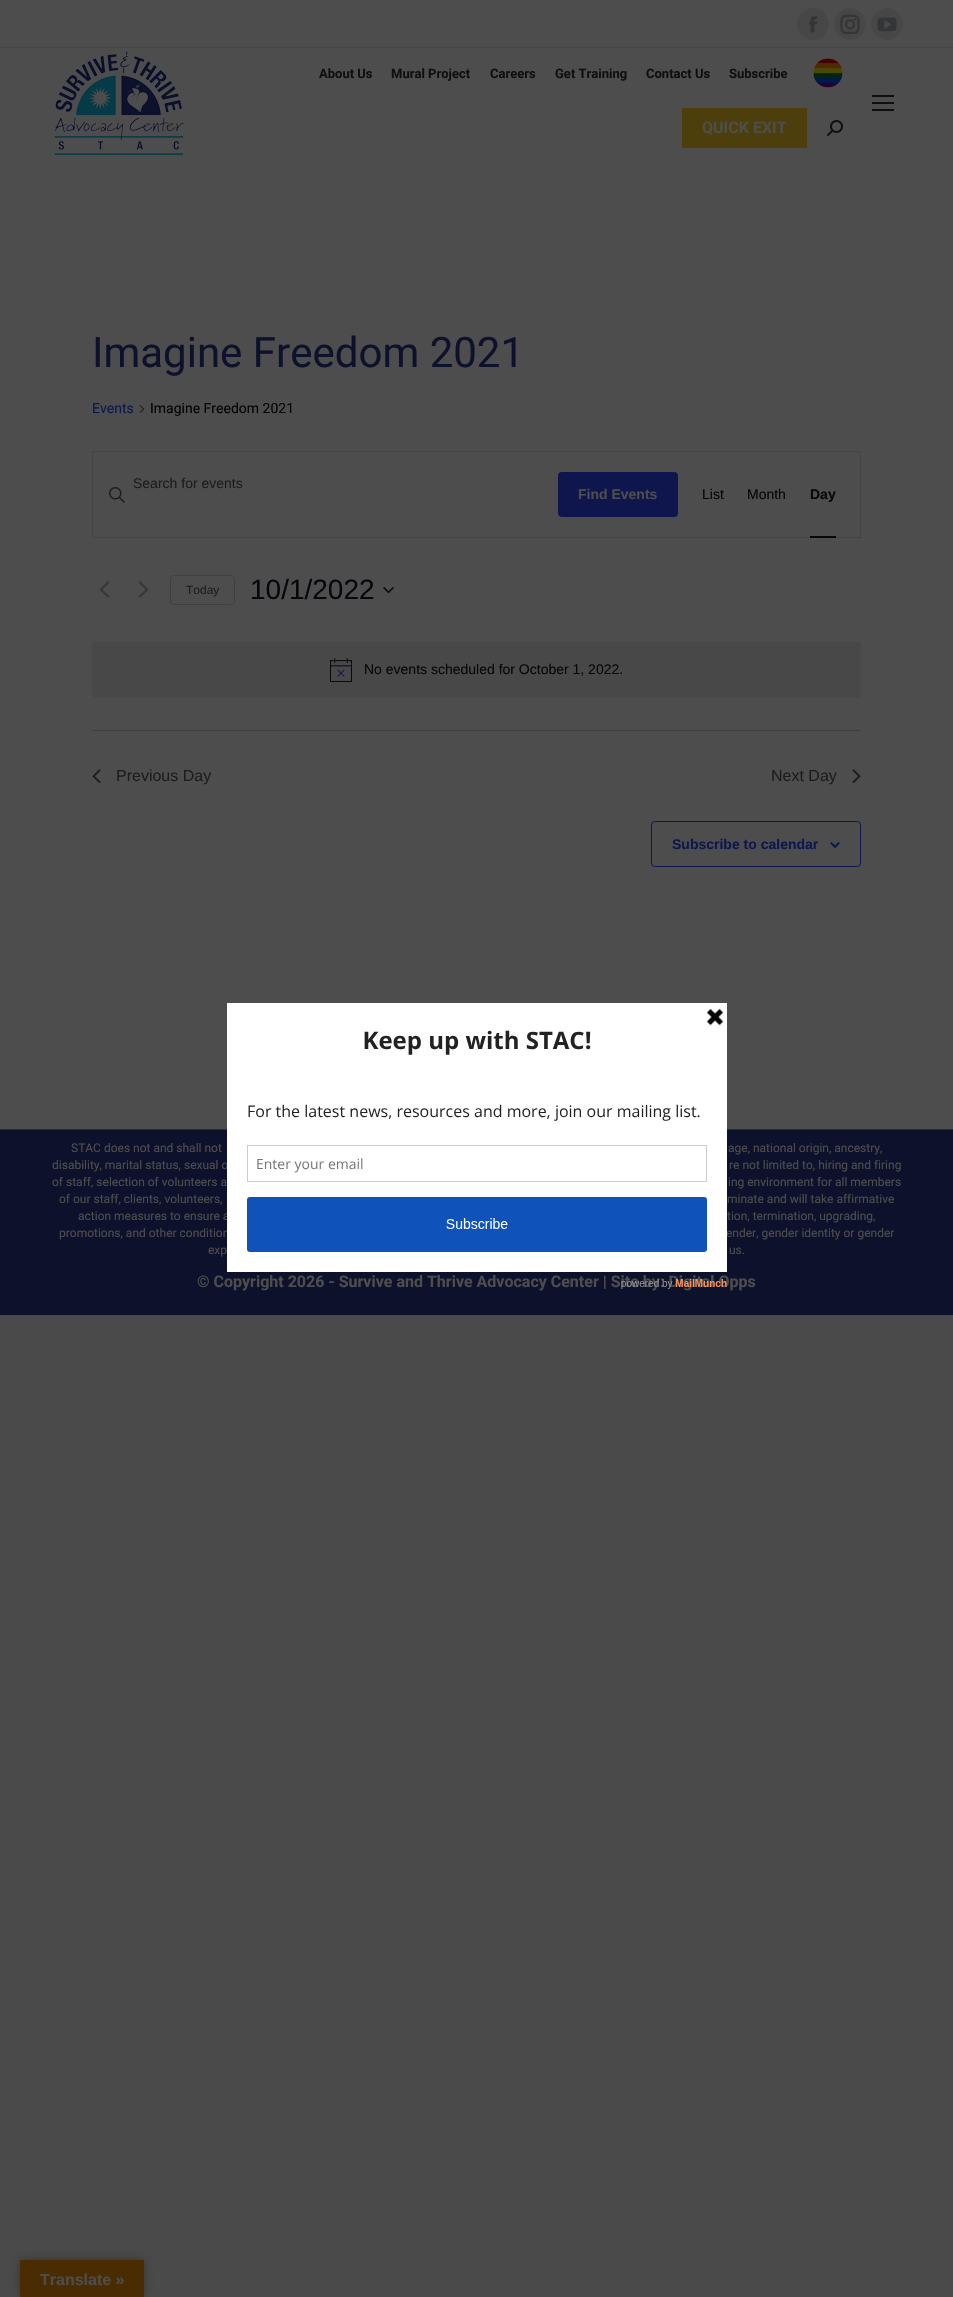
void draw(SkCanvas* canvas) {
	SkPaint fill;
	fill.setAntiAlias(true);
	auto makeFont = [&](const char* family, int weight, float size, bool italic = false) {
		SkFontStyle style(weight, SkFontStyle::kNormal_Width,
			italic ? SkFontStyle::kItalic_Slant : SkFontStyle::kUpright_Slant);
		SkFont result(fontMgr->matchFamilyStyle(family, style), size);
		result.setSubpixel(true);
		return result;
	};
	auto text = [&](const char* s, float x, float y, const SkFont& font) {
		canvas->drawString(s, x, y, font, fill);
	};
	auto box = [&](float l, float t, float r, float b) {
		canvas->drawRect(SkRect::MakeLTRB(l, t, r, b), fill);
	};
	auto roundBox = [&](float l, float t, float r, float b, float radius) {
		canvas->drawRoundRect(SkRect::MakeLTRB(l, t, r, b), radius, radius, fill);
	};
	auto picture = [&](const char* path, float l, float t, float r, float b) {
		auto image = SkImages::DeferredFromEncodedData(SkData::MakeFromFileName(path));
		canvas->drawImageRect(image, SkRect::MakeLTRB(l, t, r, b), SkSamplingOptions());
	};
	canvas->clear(0xFF4A4A4A);
	fill.setColor(0xFF4D4D4D);
	box(0, 0, 953, 1129);
	fill.setColor(0xFF474747);
	canvas->drawCircle(813, 24, 16, fill);
	picture("image0.png", 808, 16, 818, 33);
	canvas->drawCircle(850, 24, 16, fill);
	picture("image1.png", 840, 14, 860, 34);
	canvas->drawCircle(887, 24, 16, fill);
	picture("image2.png", 877, 17, 897, 32);
	fill.setColor(0xFF464646);
	box(0, 47, 953, 48);
	picture("image3.png", 54, 51, 184, 155);
	picture("image4.png", 813, 58, 843, 88);
	fill.setColor(0xFF4D3F0B);
	box(682, 108, 807, 148);
	picture("image5.png", 827, 120, 843, 136);
	fill.setColor(0xFF0F0F0F);
	box(872, 95, 894, 97);
	box(872, 102, 894, 104);
	box(872, 109, 894, 111);
	picture("image6.png", 139, 405, 145, 413);
	fill.setStyle(SkPaint::kStroke_Style);
	fill.setStrokeWidth(1);
	fill.setColor(0xFF444444);
	canvas->drawRect(SkRect::MakeLTRB(92.5f, 451.5f, 860.5f, 537.5f), fill);
	picture("image7.png", 109, 487, 125, 503);
	fill.setStyle(SkPaint::kFill_Style);
	fill.setColor(0xFF0F164D);
	roundBox(558, 472, 678, 517, 4);
	fill.setColor(0xFF06070C);
	box(810, 536, 836, 538);
	picture("image8.png", 99, 581, 110, 598);
	picture("image9.png", 138, 581, 149, 598);
	fill.setStyle(SkPaint::kStroke_Style);
	fill.setColor(0xFF404040);
	canvas->drawRoundRect(SkRect::MakeLTRB(170.5f, 575.5f, 234.5f, 604.5f), 3.5f, 3.5f, fill);
	picture("image10.png", 383, 586, 394, 594);
	fill.setStyle(SkPaint::kFill_Style);
	fill.setColor(0xFF484848);
	roundBox(92, 642, 861, 698, 4);
	picture("image11.png", 330, 658, 352, 682);
	fill.setColor(0xFF404040);
	box(92, 730, 861, 731);
	picture("image12.png", 92, 769, 101, 783);
	picture("image13.png", 852, 769, 861, 783);
	fill.setStyle(SkPaint::kStroke_Style);
	fill.setColor(0xFF0F164D);
	canvas->drawRoundRect(SkRect::MakeLTRB(651.5f, 821.5f, 860.5f, 866.5f), 3.5f, 3.5f, fill);
	picture("image14.png", 830, 842, 840, 848);
	fill.setStyle(SkPaint::kFill_Style);
	fill.setColor(0xFF0D112B);
	box(0, 1130, 953, 1315);
	fill.setColor(0xFF063A47);
	box(0, 1129, 953, 1130);
	fill.setColor(0x4D000000);
	fill.setMaskFilter(SkMaskFilter::MakeBlur(kNormal_SkBlurStyle, 4.5f));
	canvas->drawRect(SkRect::MakeLTRB(20, 2260, 144, 2297), fill);
	fill.setMaskFilter(nullptr);
	fill.setColor(0xFF4A2C02);
	box(20, 2260, 144, 2297);
	auto font1 = makeFont("Roboto", 700, 13);
	fill.setColor(0xFF0F0F0F);
	text("About Us", 319, 78, font1);
	text("Mural Project", 391, 78, font1);
	text("Careers", 490, 78, font1);
	text("Get Training", 555, 78, font1);
	text("Contact Us", 646, 78, font1);
	text("Subscribe", 729, 78, font1);
	auto font2 = makeFont("Roboto", 700, 16);
	fill.setColor(0xFF4D4D4D);
	text("QUICK EXIT", 702, 133, font2);
	auto font3 = makeFont("Roboto", 400, 42);
	fill.setColor(0xFF0D112B);
	text("Imagine Freedom 2021", 92, 367, font3);
	auto font4 = makeFont("Roboto", 400, 14);
	fill.setColor(0xFF0F164D);
	text("Events", 92, 413, font4);
	fill.setColor(0xFF030303);
	text("Imagine Freedom 2021", 150, 413, font4);
	auto font5 = makeFont("Liberation Sans", 400, 14);
	fill.setColor(0xFF1C1C1C);
	text("Search for events", 133, 488, font5);
	auto font6 = makeFont("Liberation Sans", 700, 14);
	fill.setColor(0xFF4D4D4D);
	text("Find Events", 578, 499, font6);
	fill.setColor(0xFF06070C);
	text("List", 702, 499, font5);
	text("Month", 747, 499, font5);
	text("Day", 810, 499, font6);
	auto font7 = makeFont("Liberation Sans", 400, 12);
	fill.setColor(0xFF1C1C1C);
	text("Today", 186, 594, font7);
	auto font8 = makeFont("Liberation Sans", 400, 28);
	fill.setColor(0xFF06070C);
	text("10/1/2022", 250, 599, font8);
	text("No events scheduled for October 1, 2022.", 364, 674, font5);
	auto font9 = makeFont("Liberation Sans", 400, 16);
	fill.setColor(0xFF1C1C1C);
	text("Previous Day", 116, 781, font9);
	text("Next Day", 771, 781, font9);
	fill.setColor(0xFF0F164D);
	text("Subscribe to calendar", 672, 849, font6);
	auto font10 = makeFont("Roboto", 400, 12);
	fill.setColor(0xFF4D4D4D);
	text("STAC does not and shall not", 71, 1152, font10);
	text("age, national origin, ancestry,", 728, 1152, font10);
	text("disability, marital status, sexual o", 52, 1169, font10);
	text("re not limited to, hiring and firing", 729, 1169, font10);
	text("of staff, selection of volunteers a", 52, 1186, font10);
	text("ing environment for all members", 728, 1186, font10);
	text("of our staff, clients, volunteers,", 59, 1203, font10);
	text("minate and will take affirmative", 727, 1203, font10);
	text("action measures to ensure a", 78, 1220, font10);
	text("tion, termination, upgrading,", 727, 1220, font10);
	text("promotions, and other condition", 59, 1237, font10);
	text("ender, gender identity or gender", 726, 1237, font10);
	text("exp", 208, 1254, font10);
	text("us.", 729, 1254, font10);
	text("© Copyright 2026 - Survive and Thrive Advocacy Center | Site by: Digital Opps", 197, 1287, font2);
	picture("image15.png", 227, 1003, 727, 1289);
	auto font11 = makeFont("Liberation Sans", 700, 16);
	text("Translate »", 40, 2285, font11);
}
